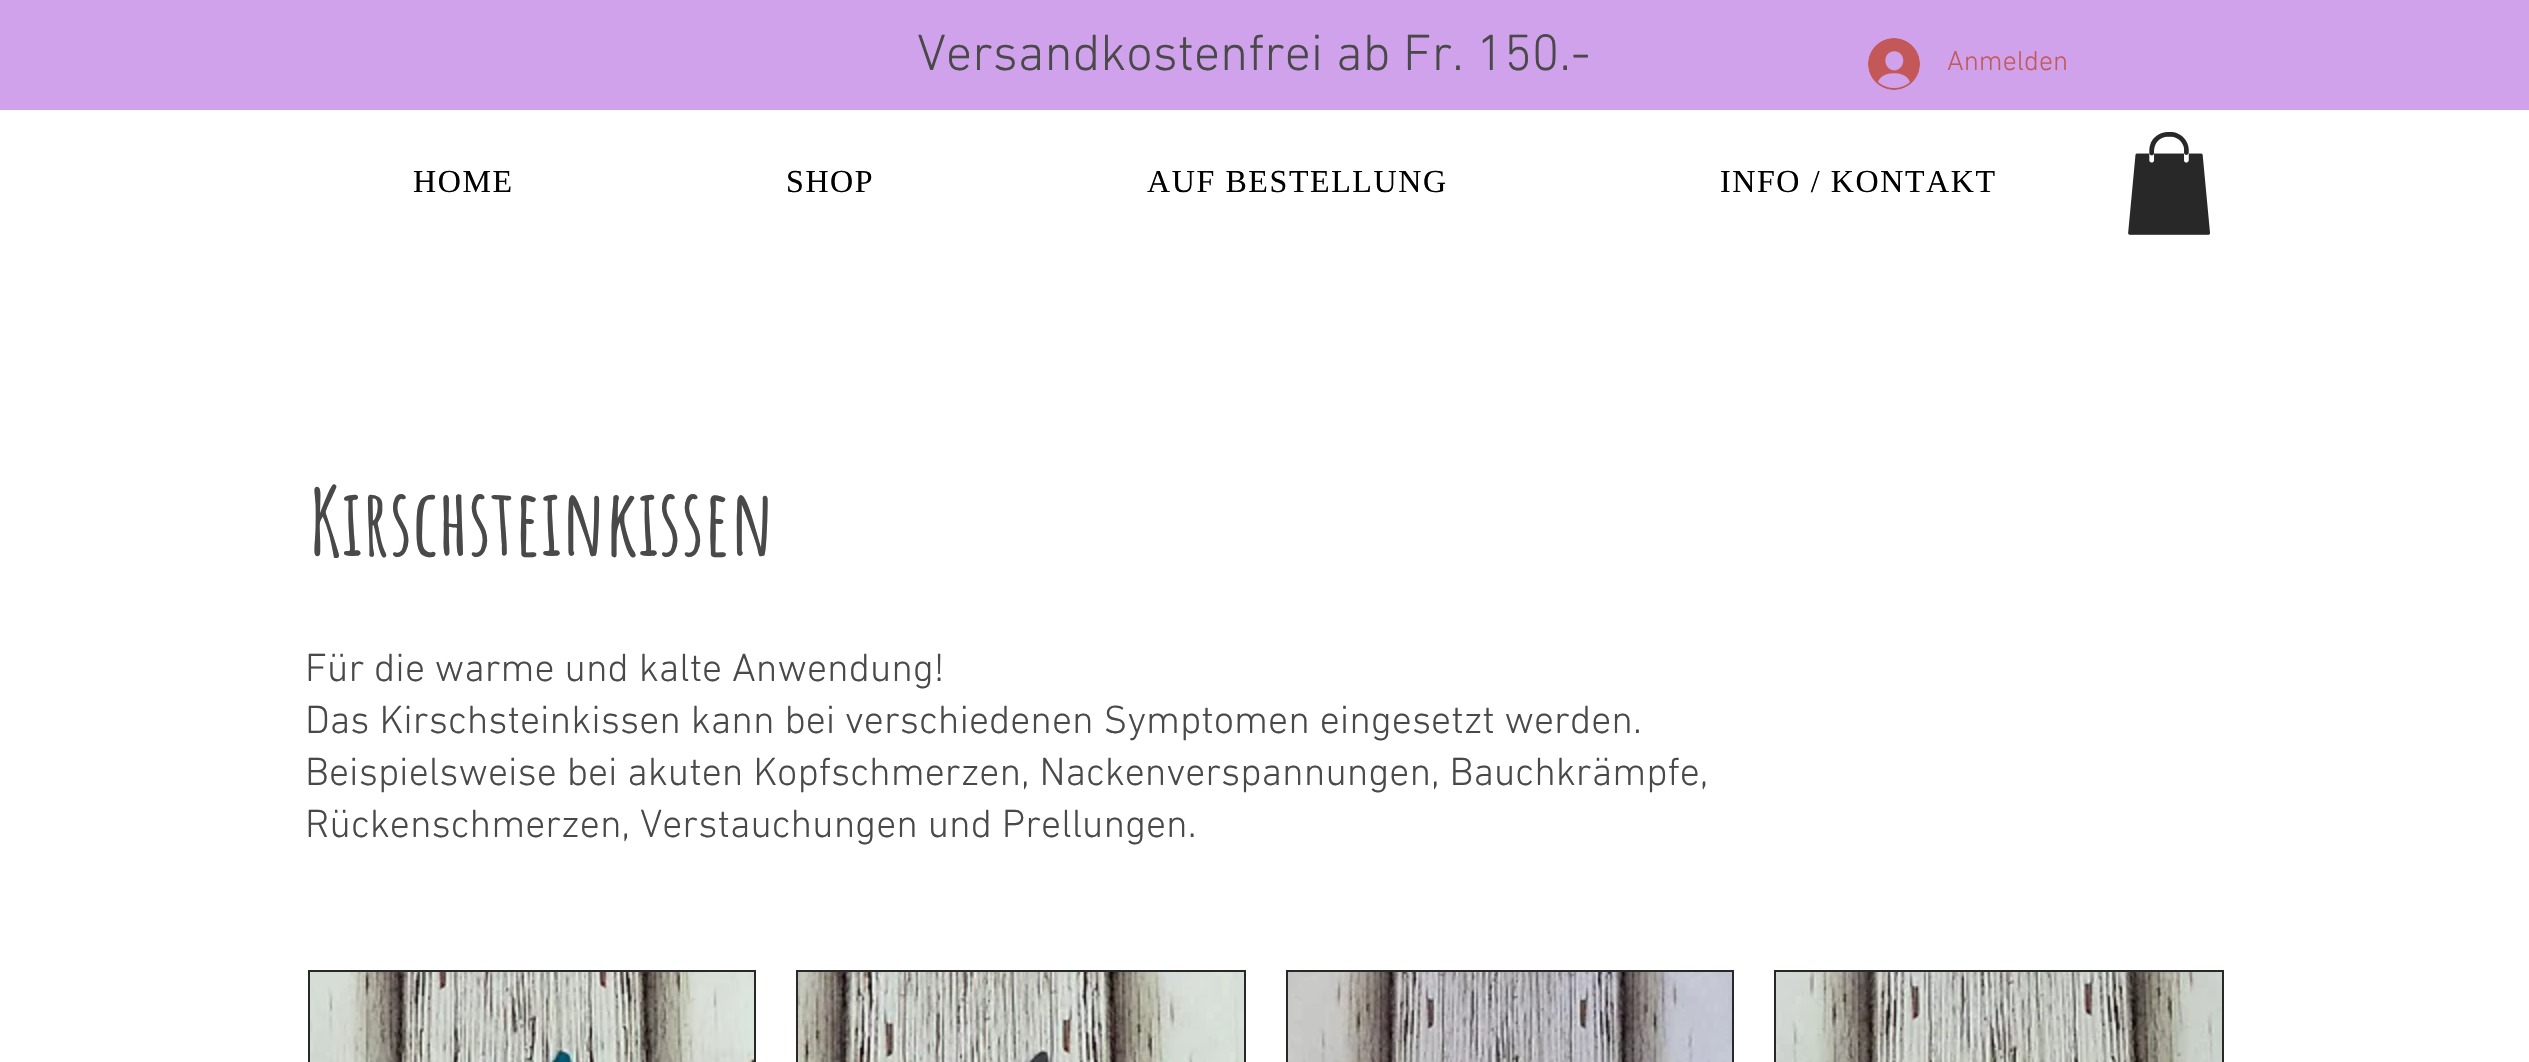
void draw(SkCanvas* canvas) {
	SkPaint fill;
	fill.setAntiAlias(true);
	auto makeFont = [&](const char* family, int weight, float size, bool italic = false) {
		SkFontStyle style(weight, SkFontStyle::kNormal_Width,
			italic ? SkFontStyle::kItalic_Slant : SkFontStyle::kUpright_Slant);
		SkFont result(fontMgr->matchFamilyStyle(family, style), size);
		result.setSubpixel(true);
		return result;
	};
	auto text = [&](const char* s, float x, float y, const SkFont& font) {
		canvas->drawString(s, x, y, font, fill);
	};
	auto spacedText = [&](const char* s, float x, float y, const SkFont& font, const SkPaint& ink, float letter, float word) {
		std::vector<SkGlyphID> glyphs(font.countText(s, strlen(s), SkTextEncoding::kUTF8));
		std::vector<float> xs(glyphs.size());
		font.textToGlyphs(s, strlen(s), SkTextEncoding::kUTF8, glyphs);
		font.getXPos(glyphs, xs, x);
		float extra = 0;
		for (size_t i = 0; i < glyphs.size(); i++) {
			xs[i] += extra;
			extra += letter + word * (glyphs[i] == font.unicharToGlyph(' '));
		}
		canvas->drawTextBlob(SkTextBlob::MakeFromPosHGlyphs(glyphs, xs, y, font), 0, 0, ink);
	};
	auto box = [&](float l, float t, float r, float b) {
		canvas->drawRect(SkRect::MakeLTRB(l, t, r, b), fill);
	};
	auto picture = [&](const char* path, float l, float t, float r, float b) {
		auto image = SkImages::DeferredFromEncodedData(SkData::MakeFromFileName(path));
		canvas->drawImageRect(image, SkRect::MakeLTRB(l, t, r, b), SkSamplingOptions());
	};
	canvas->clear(0xFFFFFFFF);
	fill.setColor(0xFFCFA2EB);
	box(0, 0, 2529, 110);
	picture("image0.png", 1868, 38, 1920, 90);
	picture("image1.png", 2128, 132, 2210, 235);
	fill.setStyle(SkPaint::kStroke_Style);
	fill.setStrokeWidth(2);
	fill.setColor(0xFF282828);
	canvas->drawRect(SkRect::MakeLTRB(309, 971, 755, 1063), fill);
	picture("image2.png", 310, 972, 754, 1062);
	canvas->drawRect(SkRect::MakeLTRB(797, 971, 1245, 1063), fill);
	picture("image3.png", 798, 972, 1244, 1062);
	canvas->drawRect(SkRect::MakeLTRB(1287, 971, 1733, 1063), fill);
	picture("image4.png", 1288, 972, 1732, 1062);
	canvas->drawRect(SkRect::MakeLTRB(1775, 971, 2223, 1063), fill);
	picture("image5.png", 1776, 972, 2222, 1062);
	auto font1 = makeFont("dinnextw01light", 300, 52);
	fill.setStyle(SkPaint::kFill_Style);
	fill.setColor(0xFF494949);
	text("Versandkostenfrei ab Fr. 150.-", 917, 70, font1);
	auto font2 = makeFont("dinnextw01light", 300, 28);
	fill.setColor(0xFFC45858);
	text("Anmelden", 1947, 70, font2);
	auto font3 = makeFont("Liberation Serif", 400, 32);
	fill.setColor(0xFF000000);
	spacedText("HOME", 413, 192, font3, fill, 1.6f, 0);
	spacedText("SHOP", 786, 192, font3, fill, 1.6f, 0);
	spacedText("AUF BESTELLUNG", 1147, 192, font3, fill, 1.6f, 0);
	spacedText("INFO / KONTAKT", 1720, 192, font3, fill, 1.6f, 0);
	auto font4 = makeFont("Amatic SC", 700, 92);
	fill.setColor(0xFF494949);
	text("Kirschsteinkissen", 309, 556, font4);
	auto font5 = makeFont("dinnextw01light", 300, 40);
	text("Für die warme und kalte Anwendung!", 305, 681, font5);
	text("Das Kirschsteinkissen kann bei verschiedenen Symptomen eingesetzt werden.", 305, 733, font5);
	text("Beispielsweise bei akuten Kopfschmerzen, Nackenverspannungen, Bauchkrämpfe,", 305, 785, font5);
	text("Rückenschmerzen, Verstauchungen und Prellungen.", 305, 837, font5);
}
